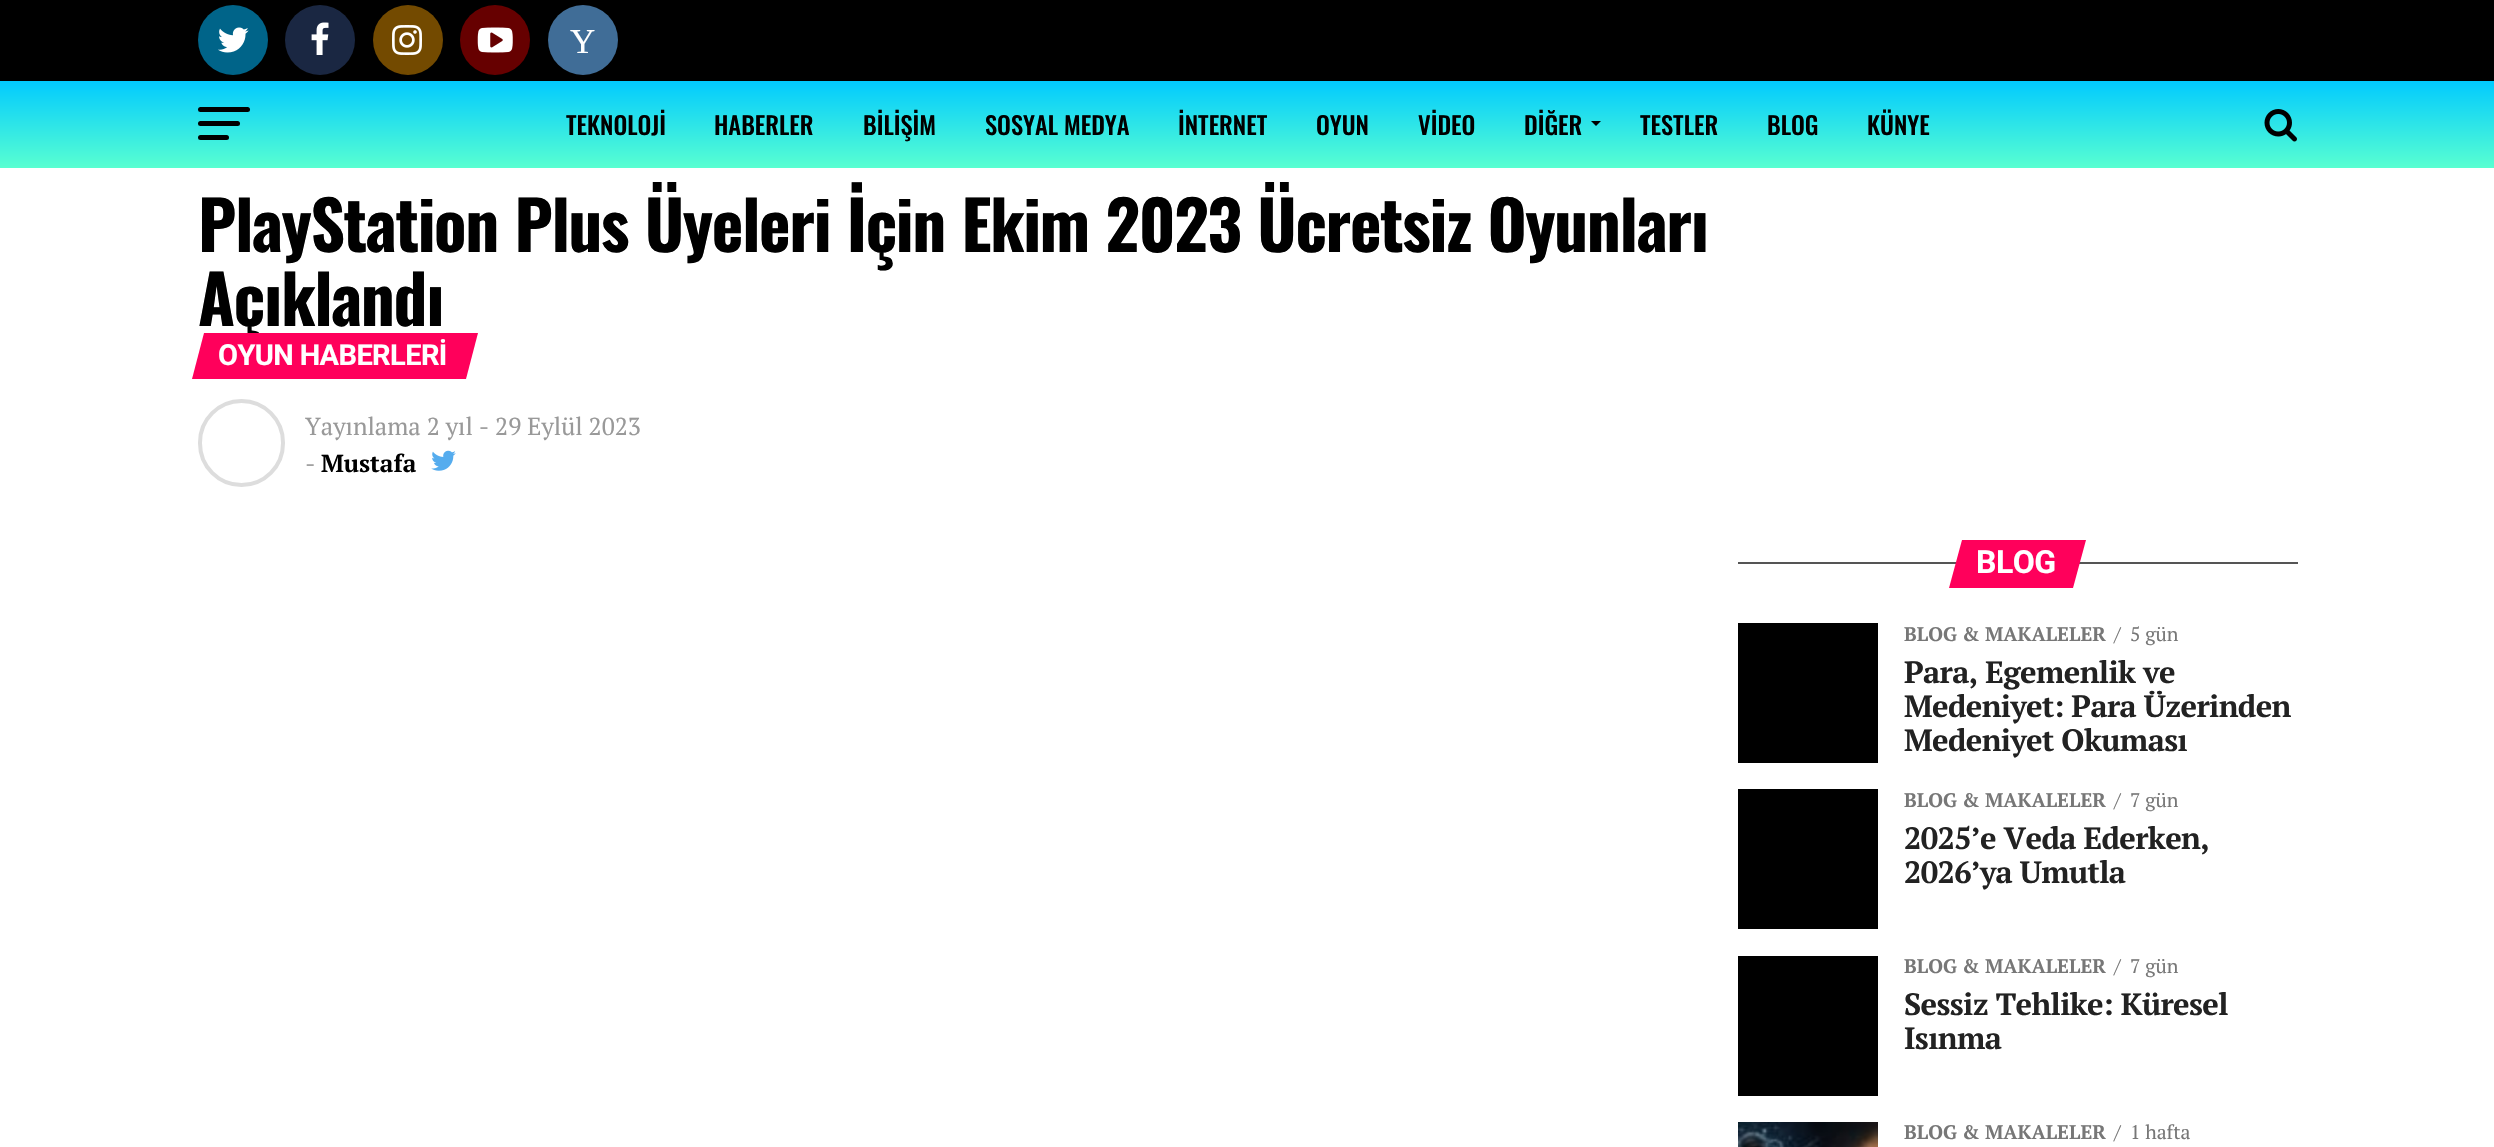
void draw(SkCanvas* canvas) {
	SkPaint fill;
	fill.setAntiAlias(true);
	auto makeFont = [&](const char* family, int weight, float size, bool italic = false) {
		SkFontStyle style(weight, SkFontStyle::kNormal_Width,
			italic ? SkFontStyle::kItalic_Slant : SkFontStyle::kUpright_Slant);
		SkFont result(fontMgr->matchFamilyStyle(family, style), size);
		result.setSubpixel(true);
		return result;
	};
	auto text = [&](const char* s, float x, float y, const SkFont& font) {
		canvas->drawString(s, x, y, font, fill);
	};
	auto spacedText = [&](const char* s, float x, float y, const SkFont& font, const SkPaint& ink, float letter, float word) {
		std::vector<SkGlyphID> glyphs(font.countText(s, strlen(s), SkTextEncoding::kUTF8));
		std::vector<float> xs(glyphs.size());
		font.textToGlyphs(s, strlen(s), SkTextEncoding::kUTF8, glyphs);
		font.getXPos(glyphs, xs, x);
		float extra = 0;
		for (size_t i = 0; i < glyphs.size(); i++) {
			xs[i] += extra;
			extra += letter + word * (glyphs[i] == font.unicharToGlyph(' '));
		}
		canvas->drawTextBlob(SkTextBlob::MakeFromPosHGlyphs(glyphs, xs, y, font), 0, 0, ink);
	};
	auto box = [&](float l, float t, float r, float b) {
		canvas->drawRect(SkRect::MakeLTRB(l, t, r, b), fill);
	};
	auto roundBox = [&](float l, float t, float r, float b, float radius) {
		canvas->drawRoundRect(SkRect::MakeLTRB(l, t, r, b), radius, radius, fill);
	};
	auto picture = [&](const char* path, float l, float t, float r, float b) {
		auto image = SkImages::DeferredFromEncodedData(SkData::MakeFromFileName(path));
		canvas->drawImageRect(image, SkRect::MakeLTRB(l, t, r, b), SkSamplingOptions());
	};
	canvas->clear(0xFFFFFFFF);
	fill.setColor(0xFF000000);
	box(0, 0, 2494, 81);
	fill.setColor(0xFF006489);
	canvas->drawCircle(233, 40, 35, fill);
	picture("image0.png", 218, 27, 249, 53);
	fill.setColor(0xFF1A2742);
	canvas->drawCircle(320, 40, 35, fill);
	picture("image1.png", 311, 22, 329, 55);
	fill.setColor(0xFF734A00);
	canvas->drawCircle(408, 40, 35, fill);
	picture("image2.png", 392, 25, 422, 55);
	fill.setColor(0xFF660000);
	canvas->drawCircle(495, 40, 35, fill);
	picture("image3.png", 477, 27, 513, 53);
	fill.setColor(0xFF406D97);
	canvas->drawCircle(583, 40, 35, fill);
	{
		const SkColor colors[] = {0xFF00CAFF, 0xFF59FFD1};
		const float stops[] = {0, 1};
		const SkPoint ends[] = {{1248, 80}, {1248, 168}};
		fill.setShader(SkGradientShader::MakeLinear(ends, colors, stops, 2, SkTileMode::kClamp));
		fill.setAlpha(255);
	}
	box(0, 81, 2494, 168);
	fill.setShader(nullptr);
	fill.setColor(0xFF000000);
	roundBox(198, 107, 250, 112, 2.5f);
	roundBox(198, 121, 240, 126, 2.5f);
	roundBox(198, 135, 229, 140, 2.5f);
	canvas->drawPath(SkPathBuilder().moveTo(1591, 121).lineTo(1601, 121).lineTo(1596, 126).close().detach(), fill);
	picture("image4.png", 2264, 109, 2297, 142);
	fill.setStyle(SkPaint::kStroke_Style);
	fill.setStrokeWidth(4);
	fill.setColor(0xFFDDDDDD);
	canvas->drawRoundRect(SkRect::MakeLTRB(200, 401, 283, 485), 41.5f, 41.5f, fill);
	picture("image5.png", 431, 450, 456, 471);
	fill.setStyle(SkPaint::kFill_Style);
	fill.setColor(0xFF555555);
	box(1738, 562, 2298, 564);
	fill.setColor(0xFFFF005B);
	canvas->drawPath(SkPathBuilder().moveTo(1962, 540).lineTo(2086, 540).lineTo(2073, 588).lineTo(1949, 588).close().detach(), fill);
	fill.setColor(0xFF000000);
	box(1738, 623, 1878, 763);
	box(1738, 789, 1878, 929);
	box(1738, 956, 1878, 1096);
	picture("image6.png", 1738, 1122, 1878, 1147);
	auto font1 = makeFont("Liberation Serif", 400, 35);
	fill.setColor(0xFFFFFFFF);
	text("Y", 570, 53, font1);
	auto font2 = makeFont("Oswald", 500, 24.5f);
	fill.setColor(0xFF000000);
	text("TEKNOLOJİ", 566, 135, font2);
	text("HABERLER", 714, 135, font2);
	text("BİLİŞİM", 863, 135, font2);
	text("SOSYAL MEDYA", 985, 135, font2);
	text("İNTERNET", 1178, 135, font2);
	text("OYUN", 1316, 135, font2);
	text("VİDEO", 1418, 135, font2);
	text("DİĞER", 1524, 135, font2);
	text("TESTLER", 1640, 135, font2);
	text("BLOG", 1767, 135, font2);
	text("KÜNYE", 1867, 135, font2);
	auto font3 = makeFont("Oswald", 700, 67.2f);
	spacedText("PlayStation Plus Üyeleri İçin Ekim 2023 Ücretsiz Oyunları", 198, 252, font3, fill, -1.35f, 0.75f);
	spacedText("Açıklandı", 198, 326, font3, fill, -1.35f, 0);
	fill.setColor(0xFFFF005B);
	canvas->drawPath(SkPathBuilder().moveTo(204, 333).lineTo(478, 333).lineTo(466, 379).lineTo(192, 379).close().detach(), fill);
	auto font4 = makeFont("Roboto", 700, 29);
	fill.setColor(0xFFFFFFFF);
	spacedText("OYUN HABERLERİ", 218, 365, font4, fill, -0.6f, 0);
	auto font5 = makeFont("PT Serif", 400, 24.5f);
	fill.setColor(0xFF999999);
	text("Yayınlama 2 yıl - 29 Eylül 2023", 305, 435, font5);
	text("-", 305, 472, font5);
	auto font6 = makeFont("PT Serif", 700, 24.5f);
	fill.setColor(0xFF000000);
	text("Mustafa", 321, 472, font6);
	auto font7 = makeFont("Roboto", 700, 32);
	fill.setColor(0xFFFFFFFF);
	spacedText("BLOG", 1976, 573, font7, fill, -0.5f, 0);
	auto font8 = makeFont("PT Serif", 700, 19.6f);
	fill.setColor(0xFF777777);
	text("BLOG & MAKALELER", 1904, 641, font8);
	auto font9 = makeFont("PT Serif", 400, 19.6f);
	text("/", 2114, 641, font9);
	text("5 gün", 2130, 641, font9);
	auto font10 = makeFont("PT Serif", 700, 30.75f);
	fill.setColor(0xFF222222);
	spacedText("Para, Egemenlik ve", 1904, 683, font10, fill, -0.6f, 0);
	spacedText("Medeniyet: Para Üzerinden", 1904, 717, font10, fill, -0.6f, 0);
	spacedText("Medeniyet Okuması", 1904, 751, font10, fill, -0.6f, 0);
	fill.setColor(0xFF777777);
	text("BLOG & MAKALELER", 1904, 807, font8);
	text("/", 2114, 807, font9);
	text("7 gün", 2130, 807, font9);
	fill.setColor(0xFF222222);
	spacedText("2025’e Veda Ederken,", 1904, 849, font10, fill, -0.6f, 0);
	spacedText("2026’ya Umutla", 1904, 883, font10, fill, -0.6f, 0);
	fill.setColor(0xFF777777);
	text("BLOG & MAKALELER", 1904, 973, font8);
	text("/", 2114, 973, font9);
	text("7 gün", 2130, 973, font9);
	fill.setColor(0xFF222222);
	spacedText("Sessiz Tehlike: Küresel", 1904, 1015, font10, fill, -0.6f, 0);
	spacedText("Isınma", 1904, 1049, font10, fill, -0.6f, 0);
	fill.setColor(0xFF777777);
	text("BLOG & MAKALELER", 1904, 1139, font8);
	text("/", 2114, 1139, font9);
	text("1 hafta", 2130, 1139, font9);
}
